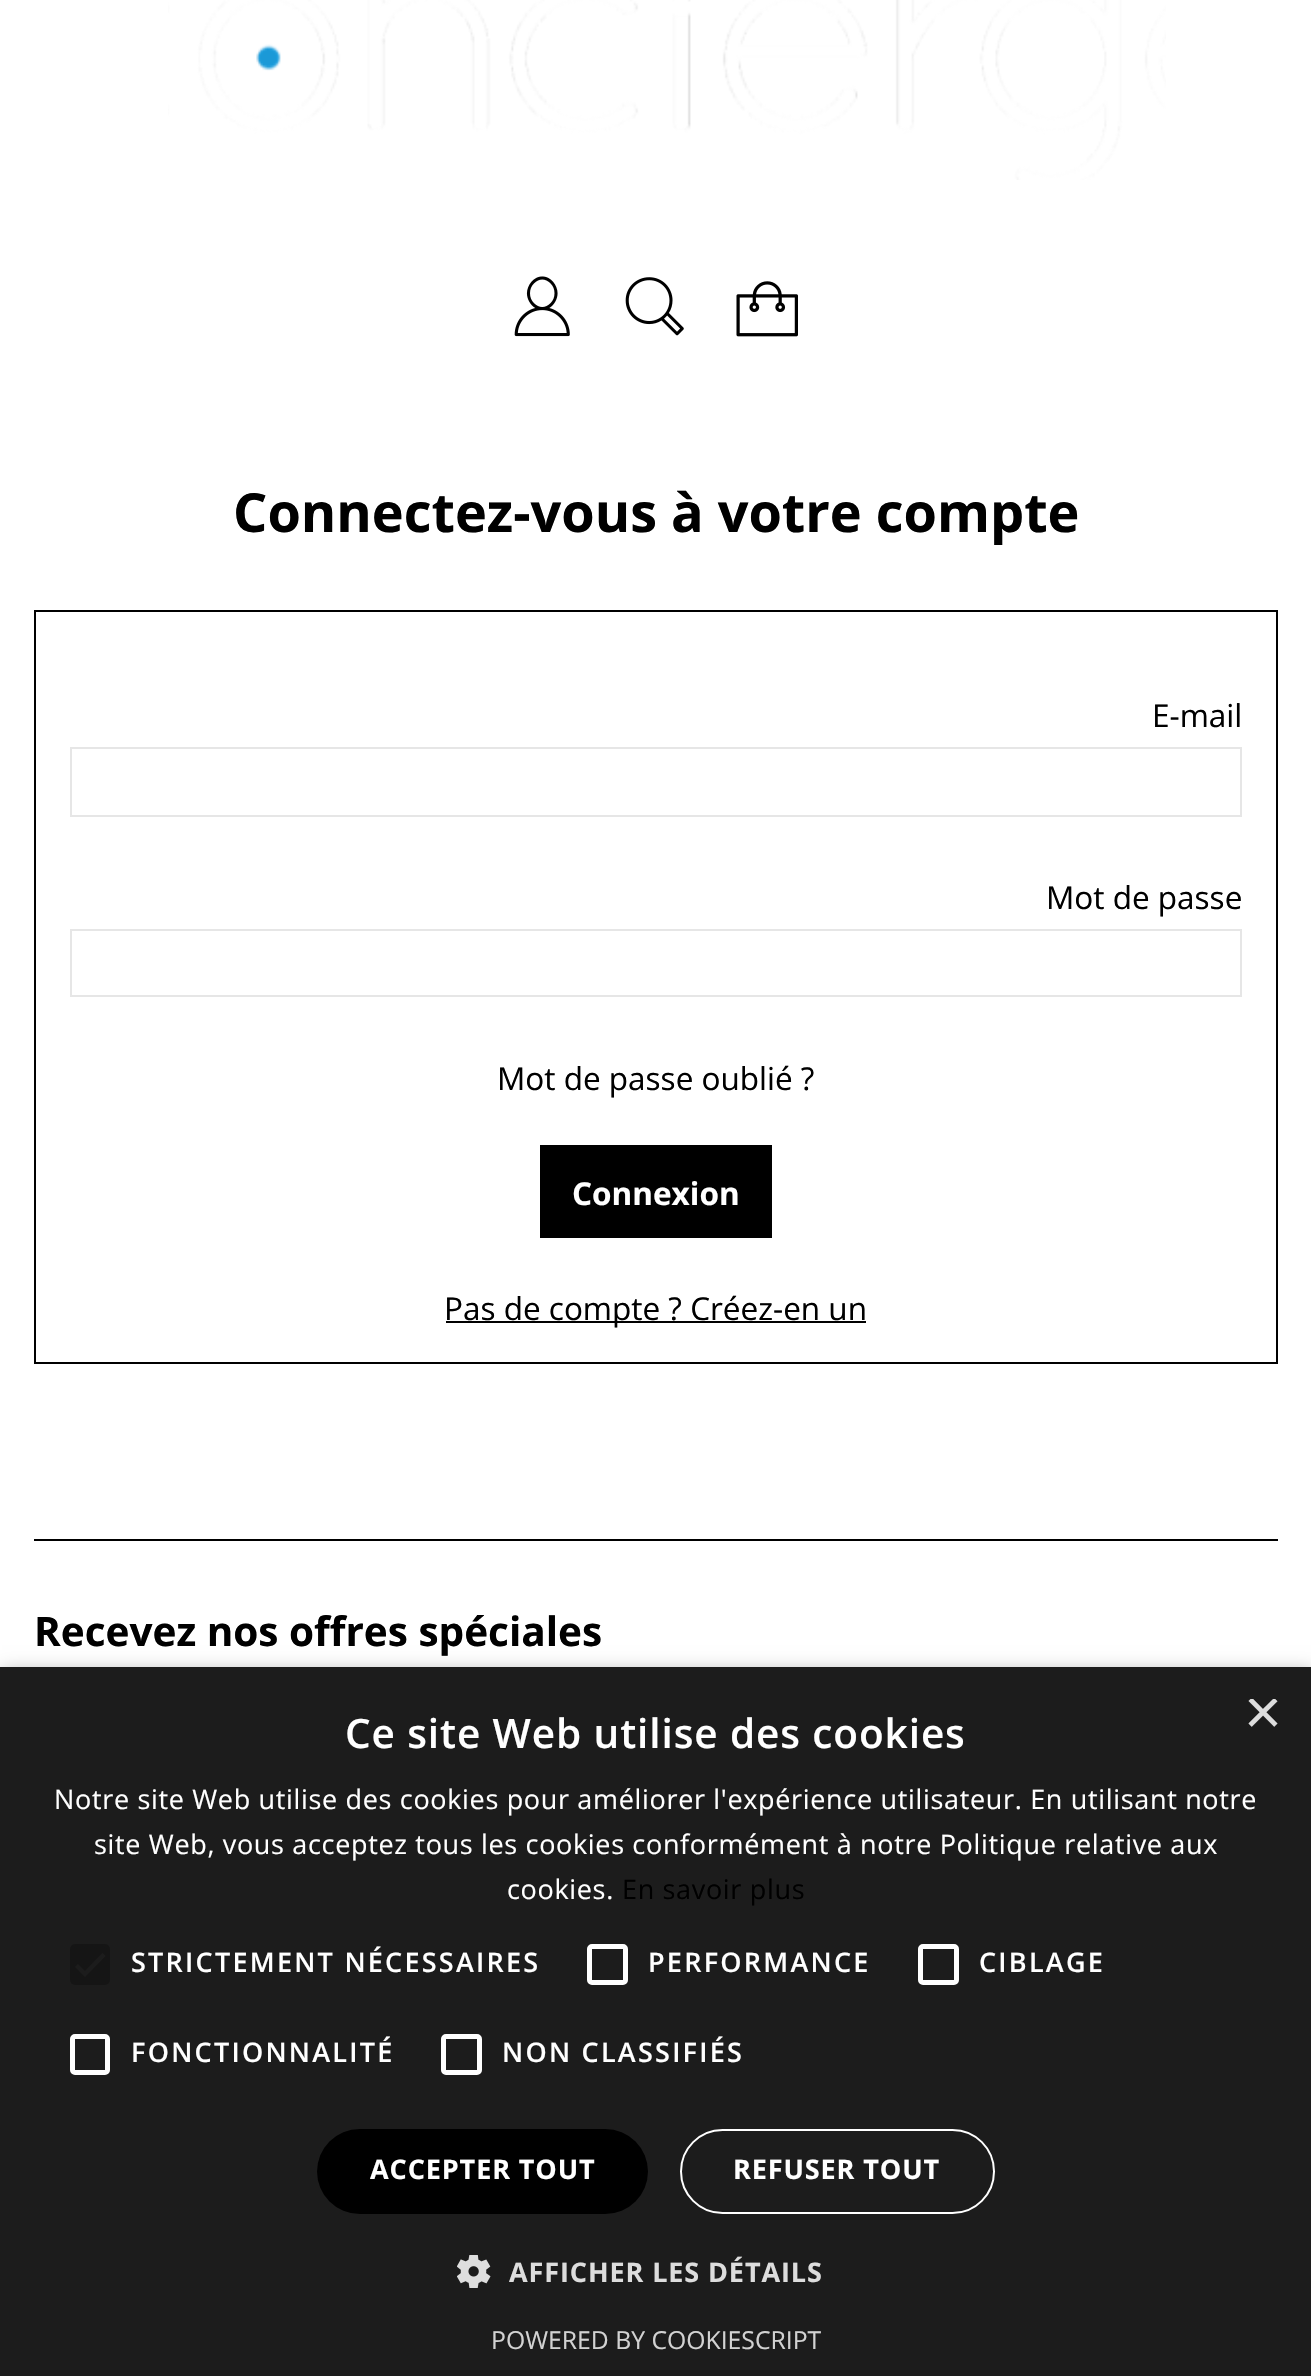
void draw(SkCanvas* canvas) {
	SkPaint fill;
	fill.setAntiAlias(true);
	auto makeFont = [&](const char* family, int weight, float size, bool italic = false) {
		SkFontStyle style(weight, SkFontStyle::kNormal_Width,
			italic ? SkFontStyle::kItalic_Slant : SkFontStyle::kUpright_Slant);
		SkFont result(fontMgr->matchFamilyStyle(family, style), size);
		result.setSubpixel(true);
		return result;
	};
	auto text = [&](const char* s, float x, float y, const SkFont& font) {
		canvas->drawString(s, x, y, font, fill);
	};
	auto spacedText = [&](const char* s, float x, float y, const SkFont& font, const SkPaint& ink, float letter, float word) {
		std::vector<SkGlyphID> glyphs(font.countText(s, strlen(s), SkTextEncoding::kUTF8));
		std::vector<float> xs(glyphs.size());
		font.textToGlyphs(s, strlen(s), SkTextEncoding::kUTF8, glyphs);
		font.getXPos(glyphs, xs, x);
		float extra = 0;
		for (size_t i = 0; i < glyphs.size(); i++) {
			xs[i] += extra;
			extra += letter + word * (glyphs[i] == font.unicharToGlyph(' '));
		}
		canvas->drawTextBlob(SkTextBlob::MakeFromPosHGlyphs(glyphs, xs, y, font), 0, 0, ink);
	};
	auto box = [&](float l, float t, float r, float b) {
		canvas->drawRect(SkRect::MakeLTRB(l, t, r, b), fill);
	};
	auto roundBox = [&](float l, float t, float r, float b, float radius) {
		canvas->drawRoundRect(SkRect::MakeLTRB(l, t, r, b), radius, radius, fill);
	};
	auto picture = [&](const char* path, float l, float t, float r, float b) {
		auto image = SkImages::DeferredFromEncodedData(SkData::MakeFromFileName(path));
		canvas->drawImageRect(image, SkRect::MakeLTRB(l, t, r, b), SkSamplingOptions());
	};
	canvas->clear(0xFFFFFFFF);
	picture("image0.png", 168, 0, 1166, 180);
	picture("image1.png", 514, 276, 570, 337);
	picture("image2.png", 625, 277, 684, 336);
	picture("image3.png", 736, 281, 798, 337);
	fill.setStyle(SkPaint::kStroke_Style);
	fill.setStrokeWidth(2);
	fill.setColor(0xFF000000);
	canvas->drawRect(SkRect::MakeLTRB(35, 611, 1277, 1363), fill);
	fill.setColor(0xFFE6E6E6);
	canvas->drawRect(SkRect::MakeLTRB(71, 748, 1241, 816), fill);
	canvas->drawRect(SkRect::MakeLTRB(71, 930, 1241, 996), fill);
	fill.setStyle(SkPaint::kFill_Style);
	fill.setColor(0xFF000000);
	box(540, 1145, 772, 1238);
	box(446, 1321, 866, 1323);
	box(34, 1539, 1278, 1541);
	fill.setColor(0x59000000);
	fill.setMaskFilter(SkMaskFilter::MakeBlur(kNormal_SkBlurStyle, 9));
	canvas->drawRect(SkRect::MakeLTRB(2, 1672, 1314, 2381), fill);
	fill.setMaskFilter(nullptr);
	fill.setColor(0xFF1C1C1C);
	box(0, 1667, 1311, 2376);
	fill.setColor(0xFF151515);
	roundBox(70, 1944, 110, 1985, 5);
	fill.setStyle(SkPaint::kStroke_Style);
	fill.setStrokeWidth(4.1f);
	fill.setColor(0xFF1C1C1C);
	canvas->drawPath(SkPathBuilder().moveTo(76.5f, 1965.5f).lineTo(85, 1974).lineTo(104, 1954.5f).detach(), fill);
	fill.setStrokeWidth(5);
	fill.setColor(0xFFFFFFFF);
	canvas->drawRoundRect(SkRect::MakeLTRB(589.5f, 1946.5f, 625.5f, 1982.5f), 2.5f, 2.5f, fill);
	canvas->drawRoundRect(SkRect::MakeLTRB(920.5f, 1946.5f, 956.5f, 1982.5f), 2.5f, 2.5f, fill);
	canvas->drawRoundRect(SkRect::MakeLTRB(72.5f, 2036.5f, 107.5f, 2072.5f), 2.5f, 2.5f, fill);
	canvas->drawRoundRect(SkRect::MakeLTRB(443.5f, 2036.5f, 479.5f, 2072.5f), 2.5f, 2.5f, fill);
	fill.setStyle(SkPaint::kFill_Style);
	fill.setColor(0xFF000000);
	roundBox(317, 2129, 648, 2214, 42.5f);
	fill.setStyle(SkPaint::kStroke_Style);
	fill.setStrokeWidth(2);
	fill.setColor(0xFFFFFFFF);
	canvas->drawRoundRect(SkRect::MakeLTRB(681, 2130, 994, 2213), 41.5f, 41.5f, fill);
	picture("image4.png", 457, 2255, 491, 2288);
	auto font1 = makeFont("Open Sans", 700, 54);
	fill.setStyle(SkPaint::kFill_Style);
	fill.setColor(0xFF000000);
	text("Connectez-vous à votre compte", 233, 532, font1);
	auto font2 = makeFont("Open Sans", 400, 31.5f);
	text("E-mail", 1152, 727, font2);
	text("Mot de passe", 1046, 909, font2);
	text("Mot de passe oublié ?", 497, 1090, font2);
	auto font3 = makeFont("Open Sans", 700, 31.5f);
	fill.setColor(0xFFFFFFFF);
	text("Connexion", 572, 1205, font3);
	fill.setColor(0xFF000000);
	text("Pas de compte ? Créez-en un", 444, 1320, font2);
	auto font4 = makeFont("Open Sans", 700, 40.5f);
	text("Recevez nos offres spéciales", 34, 1646, font4);
	canvas->save();
	canvas->clipRect(SkRect::MakeLTRB(1244, 1699, 1278, 1733));
	auto font5 = makeFont("Liberation Sans", 400, 65);
	fill.setColor(0xFFDDDDDD);
	text("×", 1244, 1734, font5);
	canvas->restore();
	auto font6 = makeFont("Open Sans", 600, 40.5f);
	fill.setColor(0xFFFFFFFF);
	spacedText("Ce site Web utilise des cookies", 345, 1748, font6, fill, 0.9f, 0);
	auto font7 = makeFont("Open Sans", 400, 27);
	spacedText("Notre site Web utilise des cookies pour améliorer l'expérience utilisateur. En utilisant notre", 54, 1809, font7, fill, 0.67f, 0);
	spacedText("site Web, vous acceptez tous les cookies conformément à notre Politique relative aux", 94, 1854, font7, fill, 0.67f, 0);
	spacedText("cookies.", 507, 1899, font7, fill, 0.67f, 0);
	fill.setColor(0xFF000000);
	spacedText("En savoir plus", 622, 1899, font7, fill, 0.67f, 0);
	auto font8 = makeFont("Open Sans", 600, 27);
	fill.setColor(0xFFFFFFFF);
	spacedText("STRICTEMENT NÉCESSAIRES", 131, 1972, font8, fill, 2.25f, 0);
	spacedText("PERFORMANCE", 648, 1972, font8, fill, 2.25f, 0);
	spacedText("CIBLAGE", 979, 1972, font8, fill, 2.25f, 0);
	spacedText("FONCTIONNALITÉ", 131, 2062, font8, fill, 2.25f, 0);
	spacedText("NON CLASSIFIÉS", 502, 2062, font8, fill, 2.25f, 0);
	auto font9 = makeFont("Open Sans", 700, 27);
	spacedText("ACCEPTER TOUT", 370, 2179, font9, fill, 0.9f, 0);
	spacedText("REFUSER TOUT", 733, 2179, font9, fill, 0.9f, 0);
	fill.setColor(0xFFDDDDDD);
	spacedText("AFFICHER LES DÉTAILS", 509, 2282, font9, fill, 0.9f, 0);
	auto font10 = makeFont("Open Sans", 400, 24.75f);
	fill.setColor(0xFFD2D2D2);
	text("POWERED BY COOKIESCRIPT", 491, 2349, font10);
}
